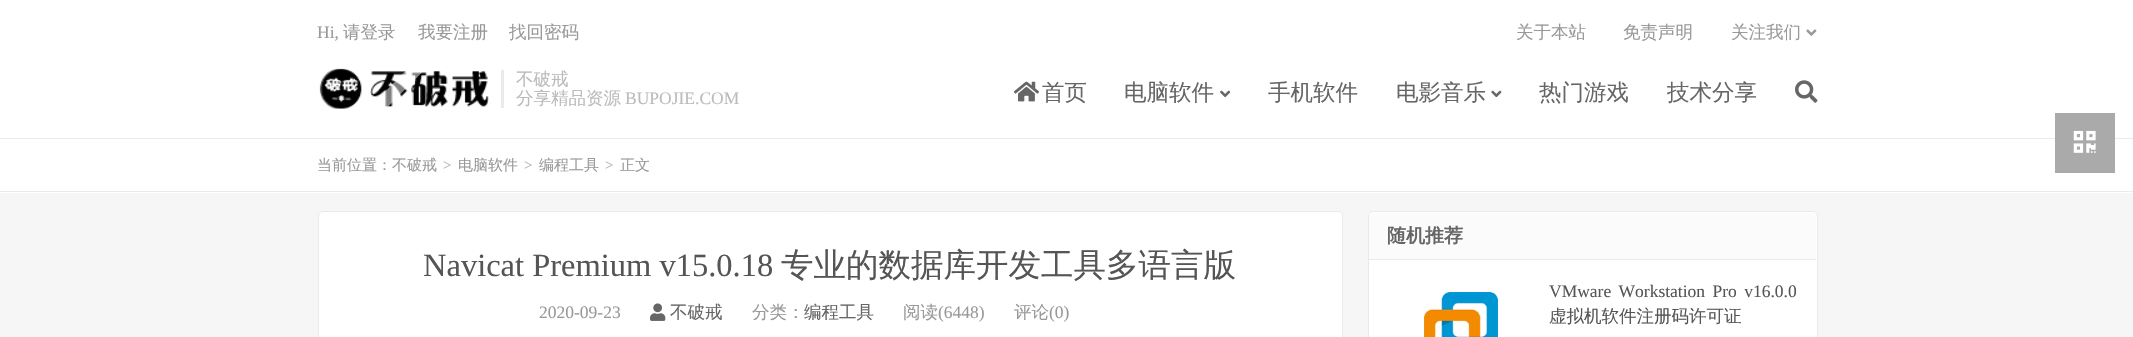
void draw(SkCanvas* canvas) {
	SkPaint fill;
	fill.setAntiAlias(true);
	auto makeFont = [&](const char* family, int weight, float size, bool italic = false) {
		SkFontStyle style(weight, SkFontStyle::kNormal_Width,
			italic ? SkFontStyle::kItalic_Slant : SkFontStyle::kUpright_Slant);
		SkFont result(fontMgr->matchFamilyStyle(family, style), size);
		result.setSubpixel(true);
		return result;
	};
	auto text = [&](const char* s, float x, float y, const SkFont& font) {
		canvas->drawString(s, x, y, font, fill);
	};
	auto spacedText = [&](const char* s, float x, float y, const SkFont& font, const SkPaint& ink, float letter, float word) {
		std::vector<SkGlyphID> glyphs(font.countText(s, strlen(s), SkTextEncoding::kUTF8));
		std::vector<float> xs(glyphs.size());
		font.textToGlyphs(s, strlen(s), SkTextEncoding::kUTF8, glyphs);
		font.getXPos(glyphs, xs, x);
		float extra = 0;
		for (size_t i = 0; i < glyphs.size(); i++) {
			xs[i] += extra;
			extra += letter + word * (glyphs[i] == font.unicharToGlyph(' '));
		}
		canvas->drawTextBlob(SkTextBlob::MakeFromPosHGlyphs(glyphs, xs, y, font), 0, 0, ink);
	};
	auto box = [&](float l, float t, float r, float b) {
		canvas->drawRect(SkRect::MakeLTRB(l, t, r, b), fill);
	};
	auto picture = [&](const char* path, float l, float t, float r, float b) {
		auto image = SkImages::DeferredFromEncodedData(SkData::MakeFromFileName(path));
		canvas->drawImageRect(image, SkRect::MakeLTRB(l, t, r, b), SkSamplingOptions());
	};
	canvas->clear(0xFFF6F6F6);
	fill.setColor(0xFFFFFFFF);
	box(0, 0, 2133, 138);
	fill.setColor(0xFFEBEBEB);
	box(0, 138, 2133, 139);
	picture("image0.png", 1806, 29, 1817, 36);
	picture("image1.png", 319, 68, 489, 109);
	canvas->save();
	canvas->clipRect(SkRect::MakeLTRB(318, 69, 489, 109));
	fill.setColor(0x80FFFFFF);
	canvas->drawPath(SkPathBuilder().moveTo(340, 137).lineTo(472, 4).lineTo(481, 13).lineTo(349, 146).close().detach(), fill);
	canvas->restore();
	fill.setColor(0xFFEAEAEA);
	box(501, 70, 504, 108);
	picture("image2.png", 1013, 81, 1040, 102);
	picture("image3.png", 1220, 90, 1231, 98);
	picture("image4.png", 1491, 90, 1502, 98);
	picture("image5.png", 1795, 80, 1818, 103);
	fill.setColor(0xFFFFFFFF);
	box(0, 139, 2133, 193);
	fill.setColor(0xFFEBEBEB);
	box(0, 191, 2133, 192);
	fill.setColor(0xFFAAAAAA);
	box(2055, 113, 2115, 173);
	picture("image6.png", 2073, 130, 2096, 153);
	fill.setColor(0xFFFFFFFF);
	canvas->drawRoundRect(SkRect::MakeLTRB(318.5f, 211.5f, 1342.5f, 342.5f), 4.5f, 4.5f, fill);
	fill.setStyle(SkPaint::kStroke_Style);
	fill.setStrokeWidth(1);
	fill.setColor(0xFFEAEAEA);
	canvas->drawRoundRect(SkRect::MakeLTRB(318.5f, 211.5f, 1342.5f, 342.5f), 4.5f, 4.5f, fill);
	picture("image7.png", 650, 303, 666, 321);
	fill.setStyle(SkPaint::kFill_Style);
	fill.setColor(0xFFFFFFFF);
	canvas->drawRoundRect(SkRect::MakeLTRB(1368.5f, 211.5f, 1817.5f, 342.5f), 4.5f, 4.5f, fill);
	fill.setStyle(SkPaint::kStroke_Style);
	fill.setColor(0xFFEAEAEA);
	canvas->drawRoundRect(SkRect::MakeLTRB(1368.5f, 211.5f, 1817.5f, 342.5f), 4.5f, 4.5f, fill);
	fill.setStyle(SkPaint::kFill_Style);
	fill.setColor(0xFFFBFBFB);
	canvas->drawPath(SkPathBuilder().moveTo(1373, 213).lineTo(1812, 213).cubicTo(1814, 213, 1816, 215, 1816, 217).lineTo(1816, 260).lineTo(1369, 260).lineTo(1369, 217).cubicTo(1369, 215, 1371, 213, 1373, 213).close().detach(), fill);
	fill.setColor(0xFFEAEAEA);
	box(1369, 259, 1816, 260);
	picture("image8.png", 1424, 292, 1498, 337);
	auto font1 = makeFont("Liberation Serif", 400, 17.5f);
	fill.setColor(0xFF999999);
	text("Hi,", 317, 38, font1);
	auto font2 = makeFont("WenQuanYi Zen Hei", 500, 17.5f);
	text("请登录", 343, 38, font2);
	text("我要注册", 418, 38, font2);
	text("找回密码", 509, 38, font2);
	text("关于本站", 1516, 38, font2);
	text("免责声明", 1623, 38, font2);
	text("关注我们", 1731, 38, font2);
	fill.setColor(0xFFBBBBBB);
	text("不破戒", 516, 85, font2);
	text("分享精品资源", 516, 104, font2);
	text("BUPOJIE.COM", 625, 104, font1);
	auto font3 = makeFont("WenQuanYi Zen Hei", 500, 22.5f);
	fill.setColor(0xFF666666);
	text("首页", 1042, 100, font3);
	text("电脑软件", 1124, 100, font3);
	text("手机软件", 1268, 100, font3);
	text("电影音乐", 1396, 100, font3);
	text("热门游戏", 1539, 100, font3);
	text("技术分享", 1667, 100, font3);
	auto font4 = makeFont("WenQuanYi Zen Hei", 500, 15);
	fill.setColor(0xFF999999);
	text("当前位置：不破戒", 317, 170, font4);
	auto font5 = makeFont("Liberation Serif", 700, 15);
	fill.setColor(0xFFBBBBBB);
	text(">", 443, 170, font5);
	fill.setColor(0xFF999999);
	text("电脑软件", 458, 170, font4);
	fill.setColor(0xFFBBBBBB);
	text(">", 524, 170, font5);
	fill.setColor(0xFF999999);
	text("编程工具", 539, 170, font4);
	fill.setColor(0xFFBBBBBB);
	text(">", 605, 170, font5);
	fill.setColor(0xFF999999);
	text("正文", 620, 170, font4);
	auto font6 = makeFont("Liberation Serif", 400, 32.5f);
	fill.setColor(0xFF555555);
	text("Navicat Premium v15.0.18", 423, 276, font6);
	auto font7 = makeFont("WenQuanYi Zen Hei", 500, 32.5f);
	text("专业的数据库开发工具多语言版", 781, 276, font7);
	fill.setColor(0xFF999999);
	text("2020-09-23", 539, 318, font1);
	fill.setColor(0xFF666666);
	text("不破戒", 670, 318, font2);
	fill.setColor(0xFF999999);
	text("分类：", 752, 318, font2);
	fill.setColor(0xFF666666);
	text("编程工具", 804, 318, font2);
	fill.setColor(0xFF999999);
	text("阅读", 903, 318, font2);
	text("(6448)", 938, 318, font1);
	text("评论", 1014, 318, font2);
	text("(0)", 1049, 318, font1);
	auto font8 = makeFont("WenQuanYi Zen Hei", 700, 19);
	fill.setColor(0xFF666666);
	text("随机推荐", 1387, 242, font8);
	fill.setColor(0xFF555555);
	spacedText("VMware Workstation Pro v16.0.0", 1549, 297, font1, fill, 0, 3);
	text("虚拟机软件注册码许可证", 1549, 322, font2);
}
